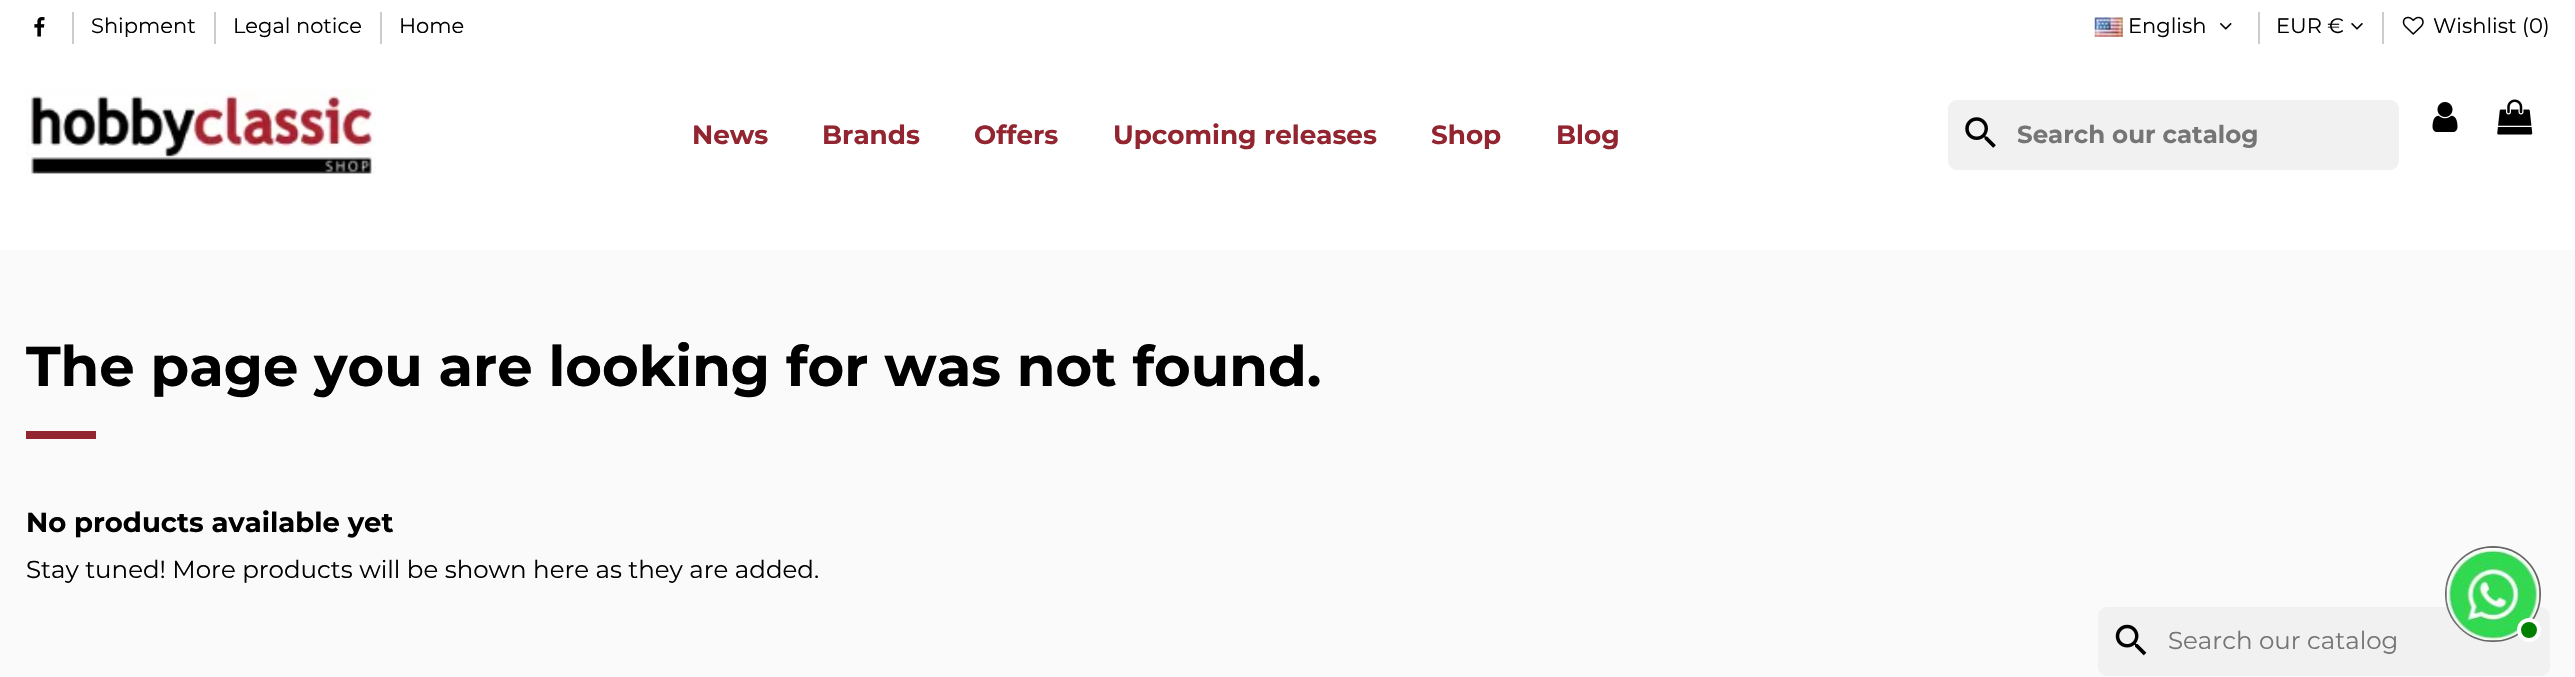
void draw(SkCanvas* canvas) {
	SkPaint fill;
	fill.setAntiAlias(true);
	auto makeFont = [&](const char* family, int weight, float size, bool italic = false) {
		SkFontStyle style(weight, SkFontStyle::kNormal_Width,
			italic ? SkFontStyle::kItalic_Slant : SkFontStyle::kUpright_Slant);
		SkFont result(fontMgr->matchFamilyStyle(family, style), size);
		result.setSubpixel(true);
		return result;
	};
	auto text = [&](const char* s, float x, float y, const SkFont& font) {
		canvas->drawString(s, x, y, font, fill);
	};
	auto box = [&](float l, float t, float r, float b) {
		canvas->drawRect(SkRect::MakeLTRB(l, t, r, b), fill);
	};
	auto roundBox = [&](float l, float t, float r, float b, float radius) {
		canvas->drawRoundRect(SkRect::MakeLTRB(l, t, r, b), radius, radius, fill);
	};
	auto picture = [&](const char* path, float l, float t, float r, float b) {
		auto image = SkImages::DeferredFromEncodedData(SkData::MakeFromFileName(path));
		canvas->drawImageRect(image, SkRect::MakeLTRB(l, t, r, b), SkSamplingOptions());
	};
	canvas->clear(0xFFFAFAFA);
	fill.setColor(0xFFFFFFFF);
	box(0, 0, 2575, 250);
	picture("image0.png", 34, 17, 45, 37);
	fill.setColor(0xFFCCCCCC);
	box(72, 12, 74, 44);
	box(214, 12, 216, 44);
	box(380, 12, 382, 44);
	picture("image1.png", 2094, 17, 2123, 37);
	picture("image2.png", 2220, 23, 2232, 30);
	box(2258, 12, 2260, 44);
	picture("image3.png", 2351, 23, 2363, 30);
	box(2382, 12, 2384, 44);
	picture("image4.png", 2402, 16, 2424, 35);
	picture("image5.png", 26, 89, 376, 174);
	picture("image6.png", 2432, 102, 2458, 132);
	picture("image7.png", 2497, 99, 2533, 135);
	fill.setColor(0xFFF1F1F1);
	roundBox(1948, 100, 2399, 170, 9);
	picture("image8.png", 1965, 117, 1996, 148);
	fill.setColor(0xFF922530);
	box(26, 431, 96, 439);
	fill.setColor(0xFFF1F1F1);
	roundBox(2098, 607, 2550, 676, 9);
	picture("image9.png", 2115, 624, 2147, 656);
	fill.setStyle(SkPaint::kStroke_Style);
	fill.setStrokeWidth(2);
	fill.setColor(0xFF666666);
	canvas->drawCircle(2493, 594, 47, fill);
	picture("image10.png", 2446, 547, 2540, 641);
	fill.setStyle(SkPaint::kFill_Style);
	fill.setColor(0xFF008000);
	canvas->drawCircle(2529, 630, 10, fill);
	fill.setStyle(SkPaint::kStroke_Style);
	fill.setStrokeWidth(4);
	fill.setColor(0xFFFFFFFF);
	canvas->drawCircle(2529, 630, 10, fill);
	auto font1 = makeFont("Montserrat", 400, 21);
	fill.setStyle(SkPaint::kFill_Style);
	fill.setColor(0xFF000000);
	text("Shipment", 91, 33, font1);
	text("Legal notice", 233, 33, font1);
	text("Home", 399, 33, font1);
	text("English", 2128, 33, font1);
	text("EUR €", 2276, 33, font1);
	text("Wishlist (0)", 2433, 33, font1);
	auto font2 = makeFont("Montserrat", 700, 26.25f);
	fill.setColor(0xFF922530);
	text("News", 692, 144, font2);
	text("Brands", 822, 144, font2);
	text("Offers", 974, 144, font2);
	text("Upcoming releases", 1113, 144, font2);
	text("Shop", 1431, 144, font2);
	text("Blog", 1556, 144, font2);
	auto font3 = makeFont("Montserrat", 700, 24.5f);
	fill.setColor(0xFF757575);
	text("Search our catalog", 2017, 143, font3);
	auto font4 = makeFont("Montserrat", 700, 56);
	fill.setColor(0xFF000000);
	text("The page you are looking for was not found.", 26, 386, font4);
	auto font5 = makeFont("Montserrat", 700, 27.5f);
	text("No products available yet", 26, 532, font5);
	auto font6 = makeFont("Montserrat", 400, 24.5f);
	text("Stay tuned! More products will be shown here as they are added.", 26, 578, font6);
	fill.setColor(0xFF757575);
	text("Search our catalog", 2168, 649, font6);
}
